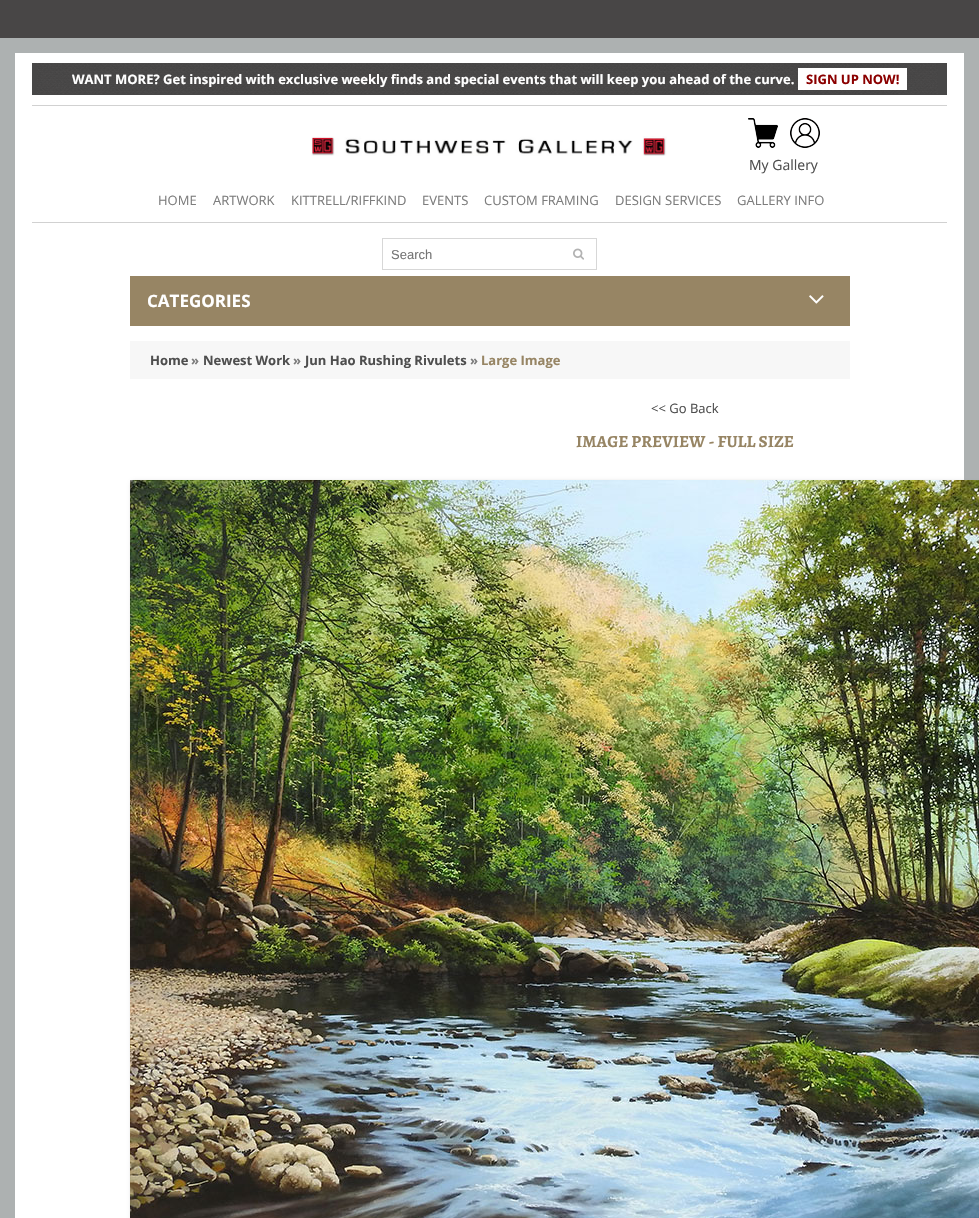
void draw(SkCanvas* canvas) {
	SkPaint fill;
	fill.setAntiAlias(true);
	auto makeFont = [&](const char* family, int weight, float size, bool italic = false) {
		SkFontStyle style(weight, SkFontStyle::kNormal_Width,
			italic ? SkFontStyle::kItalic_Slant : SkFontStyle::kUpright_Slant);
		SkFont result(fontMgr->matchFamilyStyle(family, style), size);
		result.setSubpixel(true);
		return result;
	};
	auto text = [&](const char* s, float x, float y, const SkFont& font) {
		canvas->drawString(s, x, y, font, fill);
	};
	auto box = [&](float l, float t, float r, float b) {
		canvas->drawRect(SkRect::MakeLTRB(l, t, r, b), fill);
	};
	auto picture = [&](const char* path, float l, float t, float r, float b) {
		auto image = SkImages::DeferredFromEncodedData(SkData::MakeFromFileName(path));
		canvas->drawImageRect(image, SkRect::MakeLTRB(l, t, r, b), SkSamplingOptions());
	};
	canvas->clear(0xFF484646);
	fill.setColor(0xFFFFFFFF);
	canvas->drawRect(SkRect::MakeLTRB(7.5f, 45.5f, 971.5f, 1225.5f), fill);
	fill.setStyle(SkPaint::kStroke_Style);
	fill.setStrokeWidth(15);
	fill.setColor(0xFFADB1B1);
	canvas->drawRect(SkRect::MakeLTRB(7.5f, 45.5f, 971.5f, 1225.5f), fill);
	fill.setStyle(SkPaint::kFill_Style);
	fill.setColor(0xFF484747);
	box(32, 63, 947, 95);
	picture("image0.png", 37, 63, 938, 94);
	fill.setColor(0xFFFFFFFF);
	box(798, 68, 907, 90);
	fill.setColor(0xFFD1D1D1);
	box(32, 105, 947, 106);
	box(32, 222, 947, 223);
	picture("image1.png", 311, 136, 667, 156);
	picture("image2.png", 748, 118, 778, 148);
	picture("image3.png", 790, 118, 820, 148);
	fill.setStyle(SkPaint::kStroke_Style);
	fill.setStrokeWidth(1);
	fill.setColor(0xFFD7D7D7);
	canvas->drawRect(SkRect::MakeLTRB(382.5f, 238.5f, 596.5f, 269.5f), fill);
	picture("image4.png", 573, 248, 584, 260);
	fill.setStyle(SkPaint::kFill_Style);
	fill.setColor(0xFF978564);
	box(130, 276, 850, 326);
	picture("image5.png", 809, 295, 824, 304);
	fill.setColor(0xFFF7F7F7);
	box(130, 341, 850, 379);
	fill.setColor(0xFF999999);
	fill.setMaskFilter(SkMaskFilter::MakeBlur(kNormal_SkBlurStyle, 2.5f));
	canvas->drawRect(SkRect::MakeLTRB(133, 483, 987, 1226), fill);
	fill.setMaskFilter(nullptr);
	picture("image6.png", 130, 480, 979, 1218);
	auto font1 = makeFont("Open Sans", 700, 13);
	fill.setColor(0xFFFFFFFF);
	text("WANT MORE? Get inspired with exclusive weekly finds and special events that will keep you ahead of the curve.", 72, 84, font1);
	fill.setColor(0xFF8B0000);
	text("SIGN UP NOW!", 806, 84, font1);
	auto font2 = makeFont("Open Sans", 400, 14);
	fill.setColor(0xFF4E4E4E);
	text("My Gallery", 749, 170, font2);
	auto font3 = makeFont("Open Sans", 400, 13);
	fill.setColor(0xFF7D7D7D);
	text("HOME", 158, 205, font3);
	text("ARTWORK", 213, 205, font3);
	text("KITTRELL/RIFFKIND", 291, 205, font3);
	text("EVENTS", 422, 205, font3);
	text("CUSTOM FRAMING", 484, 205, font3);
	text("DESIGN SERVICES", 615, 205, font3);
	text("GALLERY INFO", 737, 205, font3);
	auto font4 = makeFont("Liberation Sans", 400, 13);
	fill.setColor(0xFF757575);
	text("Search", 391, 259, font4);
	auto font5 = makeFont("Open Sans", 700, 17);
	fill.setColor(0xFFFFFFFF);
	text("CATEGORIES", 147, 307, font5);
	fill.setColor(0xFF4E4E4E);
	text("Home", 150, 365, font1);
	fill.setColor(0xFF7D7D7D);
	text("»", 191, 365, font1);
	fill.setColor(0xFF4E4E4E);
	text("Newest Work", 203, 365, font1);
	fill.setColor(0xFF7D7D7D);
	text("»", 293, 365, font1);
	fill.setColor(0xFF4E4E4E);
	text("Jun Hao Rushing Rivulets", 305, 365, font1);
	fill.setColor(0xFF7D7D7D);
	text("»", 470, 365, font1);
	fill.setColor(0xFF978564);
	text("Large Image", 481, 365, font1);
	fill.setColor(0xFF4E4E4E);
	text("<< Go Back", 651, 413, font3);
	auto font6 = makeFont("Alegreya SC", 700, 17);
	fill.setColor(0xFF978564);
	text("IMAGE PREVIEW - FULL SIZE", 576, 447, font6);
}
